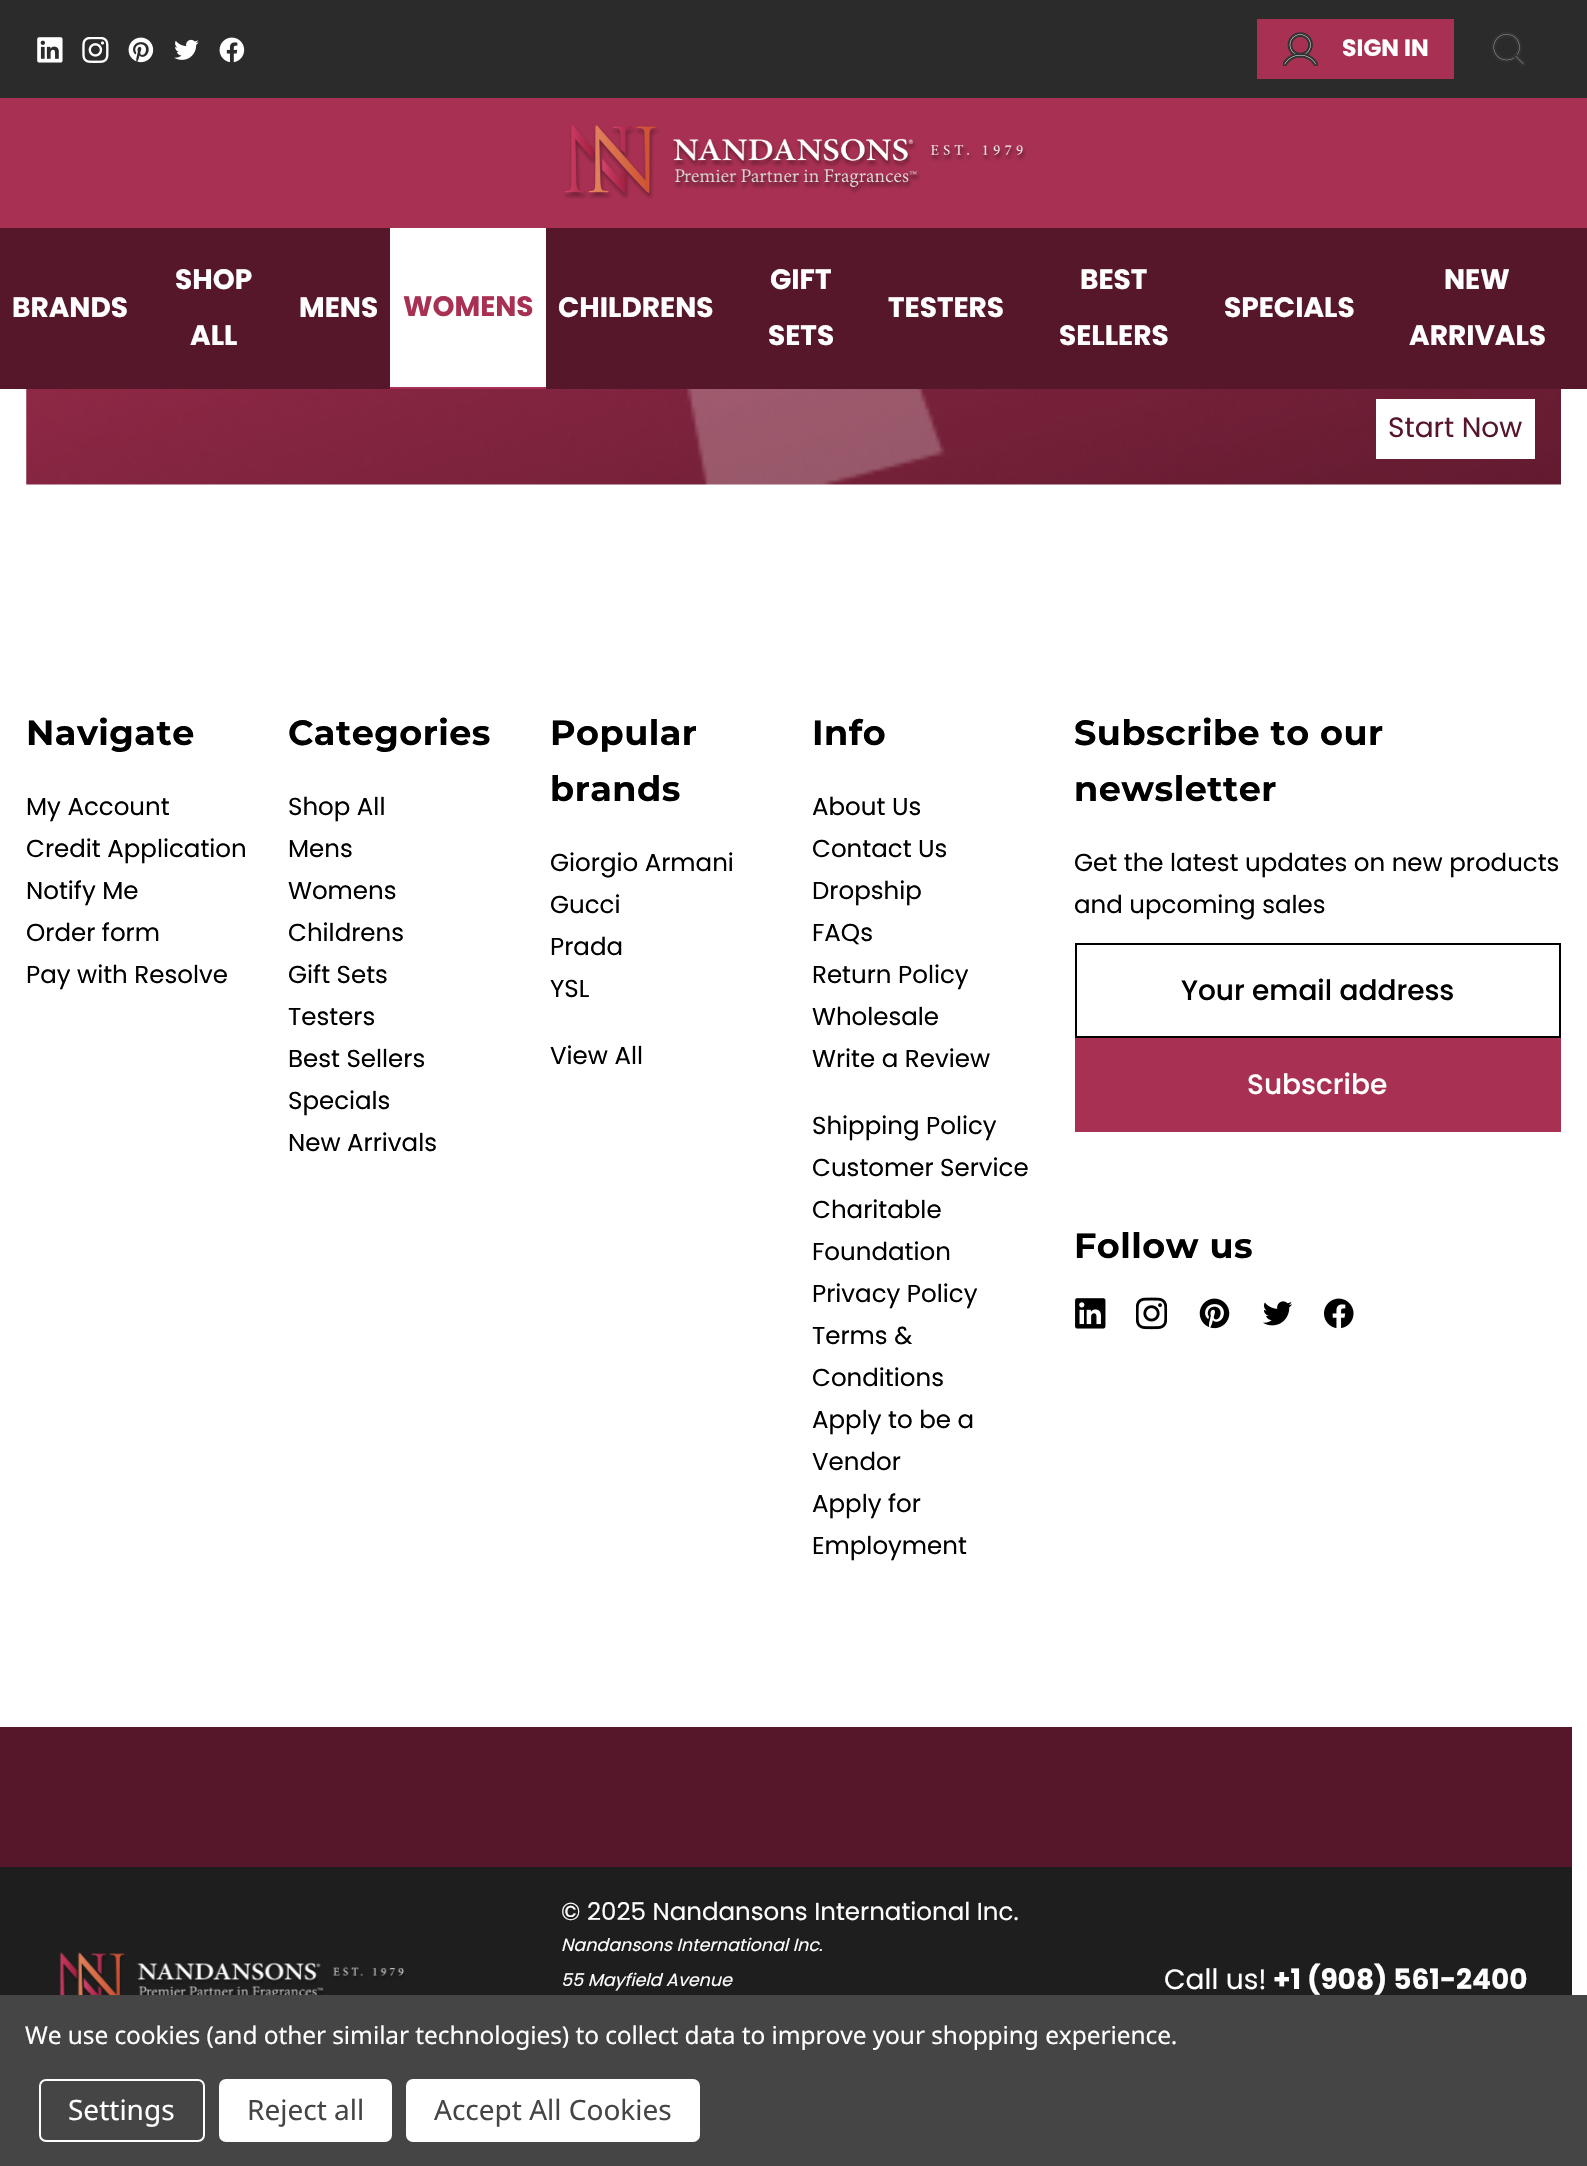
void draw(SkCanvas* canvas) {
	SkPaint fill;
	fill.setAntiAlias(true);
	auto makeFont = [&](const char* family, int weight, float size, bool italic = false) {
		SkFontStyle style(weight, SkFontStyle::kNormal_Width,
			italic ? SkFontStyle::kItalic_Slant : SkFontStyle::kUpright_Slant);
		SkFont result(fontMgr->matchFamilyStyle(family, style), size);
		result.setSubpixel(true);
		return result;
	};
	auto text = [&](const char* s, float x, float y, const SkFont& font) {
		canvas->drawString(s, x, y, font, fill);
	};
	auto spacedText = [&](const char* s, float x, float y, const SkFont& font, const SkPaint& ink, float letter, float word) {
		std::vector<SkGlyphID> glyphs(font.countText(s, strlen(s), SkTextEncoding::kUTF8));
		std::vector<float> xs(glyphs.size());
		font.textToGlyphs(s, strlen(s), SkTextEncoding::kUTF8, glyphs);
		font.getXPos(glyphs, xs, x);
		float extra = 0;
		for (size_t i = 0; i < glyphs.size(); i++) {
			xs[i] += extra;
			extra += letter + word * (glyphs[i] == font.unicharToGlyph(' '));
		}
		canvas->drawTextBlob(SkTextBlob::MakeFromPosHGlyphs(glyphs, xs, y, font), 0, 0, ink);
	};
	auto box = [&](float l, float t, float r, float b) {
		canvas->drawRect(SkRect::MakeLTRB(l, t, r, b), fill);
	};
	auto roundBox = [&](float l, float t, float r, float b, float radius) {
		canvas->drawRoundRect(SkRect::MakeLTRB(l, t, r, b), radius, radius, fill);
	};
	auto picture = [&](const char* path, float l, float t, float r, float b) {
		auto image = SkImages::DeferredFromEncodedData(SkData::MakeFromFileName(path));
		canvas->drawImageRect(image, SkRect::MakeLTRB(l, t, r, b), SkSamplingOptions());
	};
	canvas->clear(0xFFFFFFFF);
	fill.setColor(0xFF2B2B2B);
	box(0, 0, 1587, 98);
	picture("image0.png", 37, 37, 63, 63);
	picture("image1.png", 82, 37, 109, 63);
	picture("image2.png", 128, 37, 154, 63);
	picture("image3.png", 174, 39, 199, 60);
	picture("image4.png", 219, 37, 245, 63);
	fill.setColor(0xFFA83052);
	box(1257, 19, 1454, 79);
	picture("image5.png", 1283, 32, 1318, 66);
	picture("image6.png", 1491, 32, 1526, 66);
	box(0, 98, 1587, 228);
	picture("image7.png", 564, 125, 1027, 199);
	fill.setColor(0xFF56172A);
	box(0, 228, 1587, 389);
	fill.setColor(0xFFFFFFFF);
	box(390, 228, 546, 387);
	fill.setColor(0xFFA83052);
	box(390, 387, 546, 389);
	picture("image8.png", 26, 389, 1561, 485);
	fill.setColor(0xFFFFFFFF);
	box(1376, 399, 1535, 459);
	fill.setStyle(SkPaint::kStroke_Style);
	fill.setStrokeWidth(2);
	fill.setColor(0xFF000000);
	canvas->drawRect(SkRect::MakeLTRB(1076, 944, 1560, 1037), fill);
	fill.setStyle(SkPaint::kFill_Style);
	fill.setColor(0xFFA83052);
	box(1075, 1038, 1561, 1132);
	picture("image9.png", 1075, 1298, 1106, 1329);
	picture("image10.png", 1136, 1297, 1167, 1330);
	picture("image11.png", 1199, 1298, 1230, 1329);
	picture("image12.png", 1263, 1301, 1293, 1326);
	picture("image13.png", 1324, 1298, 1354, 1329);
	fill.setColor(0xFF56172A);
	box(0, 1727, 1572, 1867);
	fill.setColor(0xFF1E1E1E);
	box(0, 1867, 1572, 1995);
	picture("image14.png", 59, 1952, 404, 1995);
	fill.setColor(0xFF454545);
	box(0, 1995, 1587, 2166);
	fill.setStyle(SkPaint::kStroke_Style);
	fill.setColor(0xFFFFFFFF);
	canvas->drawRoundRect(SkRect::MakeLTRB(40, 2080, 204, 2141), 6, 6, fill);
	fill.setStyle(SkPaint::kFill_Style);
	roundBox(219, 2079, 392, 2142, 7);
	roundBox(406, 2079, 700, 2142, 7);
	auto font1 = makeFont("Poppins", 700, 23.5f);
	text("SIGN IN", 1342, 56, font1);
	auto font2 = makeFont("Poppins", 700, 28);
	text("BRANDS", 12, 317, font2);
	text("SHOP", 175, 289, font2);
	text("ALL", 190, 345, font2);
	text("MENS", 299, 317, font2);
	fill.setColor(0xFFA83052);
	text("WOMENS", 403, 316, font2);
	fill.setColor(0xFFFFFFFF);
	text("CHILDRENS", 558, 317, font2);
	text("GIFT", 770, 289, font2);
	text("SETS", 768, 345, font2);
	text("TESTERS", 888, 317, font2);
	text("BEST", 1080, 289, font2);
	text("SELLERS", 1059, 345, font2);
	text("SPECIALS", 1224, 317, font2);
	text("NEW", 1444, 289, font2);
	text("ARRIVALS", 1409, 345, font2);
	auto font3 = makeFont("Poppins", 400, 28);
	fill.setColor(0xFF56172A);
	text("Start Now", 1388, 437, font3);
	auto font4 = makeFont("Montserrat", 700, 35);
	fill.setColor(0xFF000000);
	spacedText("Navigate", 26, 745, font4, fill, 0.5f, 0);
	auto font5 = makeFont("Poppins", 400, 24.5f);
	text("My Account", 26, 815, font5);
	text("Credit Application", 26, 857, font5);
	text("Notify Me", 26, 899, font5);
	text("Order form", 26, 941, font5);
	text("Pay with Resolve", 26, 983, font5);
	spacedText("Categories", 288, 745, font4, fill, 0.5f, 0);
	text("Shop All", 288, 815, font5);
	text("Mens", 288, 857, font5);
	text("Womens", 288, 899, font5);
	text("Childrens", 288, 941, font5);
	text("Gift Sets", 288, 983, font5);
	text("Testers", 288, 1025, font5);
	text("Best Sellers", 288, 1067, font5);
	text("Specials", 288, 1109, font5);
	text("New Arrivals", 288, 1151, font5);
	spacedText("Popular", 550, 745, font4, fill, 0.5f, 0);
	spacedText("brands", 550, 801, font4, fill, 0.5f, 0);
	text("Giorgio Armani", 550, 871, font5);
	text("Gucci", 550, 913, font5);
	text("Prada", 550, 955, font5);
	text("YSL", 550, 997, font5);
	text("View All", 550, 1064, font5);
	spacedText("Info", 812, 745, font4, fill, 0.5f, 0);
	text("About Us", 812, 815, font5);
	text("Contact Us", 812, 857, font5);
	text("Dropship", 812, 899, font5);
	text("FAQs", 812, 941, font5);
	text("Return Policy", 812, 983, font5);
	text("Wholesale", 812, 1025, font5);
	text("Write a Review", 812, 1067, font5);
	text("Shipping Policy", 812, 1134, font5);
	text("Customer Service", 812, 1176, font5);
	text("Charitable", 812, 1218, font5);
	text("Foundation", 812, 1260, font5);
	text("Privacy Policy", 812, 1302, font5);
	text("Terms &", 812, 1344, font5);
	text("Conditions", 812, 1386, font5);
	text("Apply to be a", 812, 1428, font5);
	text("Vendor", 812, 1470, font5);
	text("Apply for", 812, 1512, font5);
	text("Employment", 812, 1554, font5);
	spacedText("Subscribe to our", 1074, 745, font4, fill, 0.5f, 0);
	spacedText("newsletter", 1074, 801, font4, fill, 0.5f, 0);
	text("Get the latest updates on new products", 1074, 871, font5);
	text("and upcoming sales", 1074, 913, font5);
	auto font6 = makeFont("Poppins", 500, 28);
	text("Your email address", 1181, 1000, font6);
	fill.setColor(0xFFFFFFFF);
	text("Subscribe", 1247, 1094, font6);
	fill.setColor(0xFF000000);
	spacedText("Follow us", 1074, 1258, font4, fill, 0.5f, 0);
	fill.setColor(0xFFFFFFFF);
	text("© 2025 Nandansons International Inc.", 561, 1920, font5);
	auto font7 = makeFont("Poppins", 400, 17.5f, true);
	text("Nandansons International Inc.", 561, 1951, font7);
	text("55 Mayfield Avenue", 561, 1986, font7);
	text("Call us!", 1164, 1989, font3);
	text("+1 (908) 561-2400", 1273, 1989, font2);
	auto font8 = makeFont("Noto Sans", 400, 24.5f);
	spacedText("We use cookies (and other similar technologies) to collect data to improve your shopping experience.", 25, 2044, font8, fill, -0.09f, 0);
	auto font9 = makeFont("Noto Sans", 400, 28);
	text("Settings", 68, 2120, font9);
	fill.setColor(0xFF454545);
	text("Reject all", 247, 2120, font9);
	text("Accept All Cookies", 434, 2120, font9);
}
